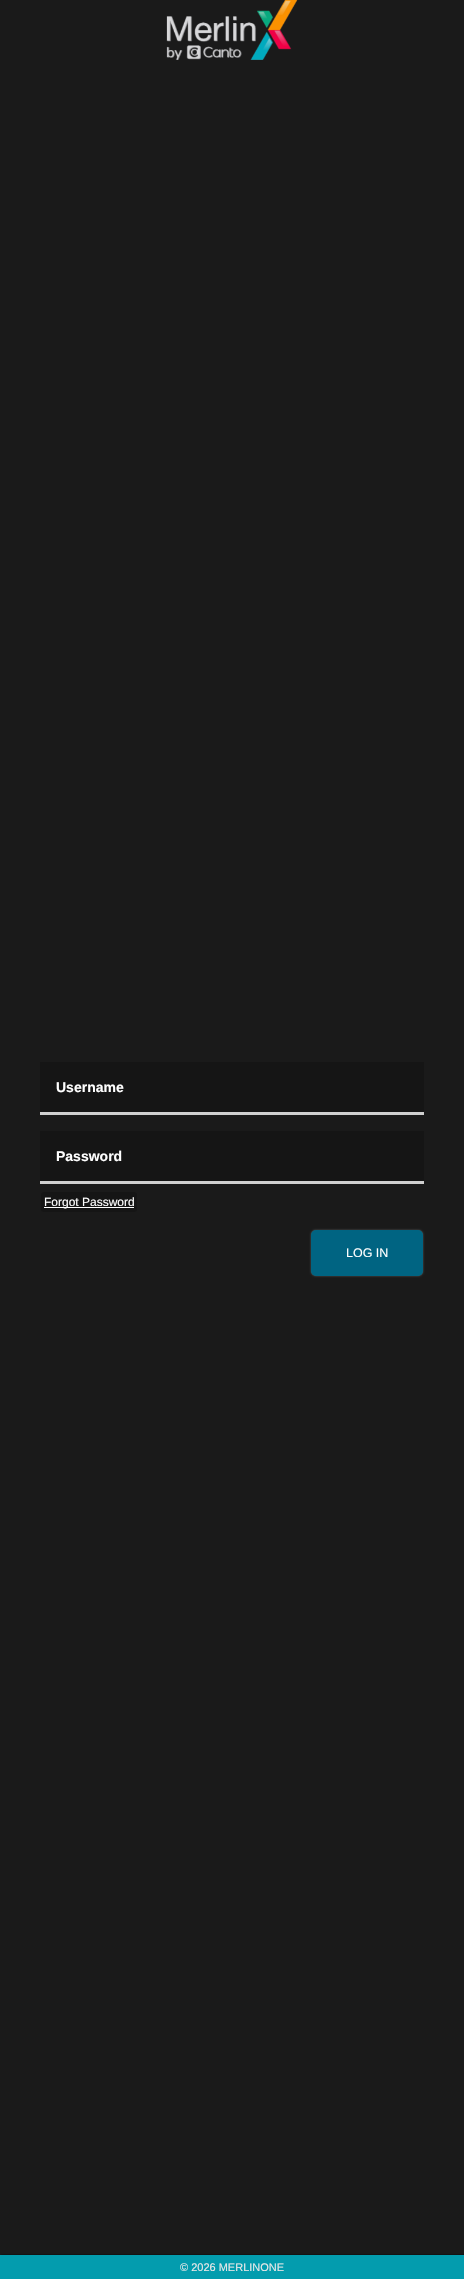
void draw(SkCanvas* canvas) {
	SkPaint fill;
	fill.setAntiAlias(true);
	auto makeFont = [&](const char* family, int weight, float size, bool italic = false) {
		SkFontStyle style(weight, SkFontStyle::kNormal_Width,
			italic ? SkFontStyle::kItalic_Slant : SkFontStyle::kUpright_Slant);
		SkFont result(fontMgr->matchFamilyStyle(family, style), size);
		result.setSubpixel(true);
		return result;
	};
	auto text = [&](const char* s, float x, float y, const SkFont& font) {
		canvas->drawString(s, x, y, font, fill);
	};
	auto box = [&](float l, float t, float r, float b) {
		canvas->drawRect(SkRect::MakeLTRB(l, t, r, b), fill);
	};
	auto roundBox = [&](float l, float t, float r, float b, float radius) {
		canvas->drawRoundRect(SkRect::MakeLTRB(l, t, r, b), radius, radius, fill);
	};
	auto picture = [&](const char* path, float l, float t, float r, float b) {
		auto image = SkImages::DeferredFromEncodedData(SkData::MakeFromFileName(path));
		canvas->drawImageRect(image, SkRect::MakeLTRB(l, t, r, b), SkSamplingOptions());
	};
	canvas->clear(0xFF1A1A1A);
	picture("image0.png", 166, 0, 298, 60);
	fill.setColor(0xFF151515);
	box(40, 1062, 424, 1112);
	fill.setColor(0xFFD0D0D0);
	box(40, 1112, 424, 1115);
	fill.setColor(0xFF151515);
	box(40, 1131, 424, 1181);
	fill.setColor(0xFFD0D0D0);
	box(40, 1181, 424, 1184);
	fill.setColor(0xFF151515);
	roundBox(41, 1192, 137, 1212, 2.5f);
	fill.setColor(0xFFFFFFFF);
	box(44, 1207, 134, 1208);
	fill.setColor(0x4DFFFFFF);
	fill.setMaskFilter(SkMaskFilter::MakeBlur(kNormal_SkBlurStyle, 1));
	canvas->drawRoundRect(SkRect::MakeLTRB(311, 1230, 423, 1276), 5, 5, fill);
	fill.setMaskFilter(nullptr);
	fill.setColor(0xFF006482);
	roundBox(311, 1230, 423, 1276, 5);
	fill.setColor(0xFF030303);
	fill.setMaskFilter(SkMaskFilter::MakeBlur(kNormal_SkBlurStyle, 1));
	canvas->drawRect(SkRect::MakeLTRB(1, 2255, 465, 2279), fill);
	fill.setMaskFilter(nullptr);
	fill.setColor(0xFF039CAE);
	box(0, 2255, 464, 2279);
	auto font1 = makeFont("Liberation Sans", 700, 14);
	fill.setColor(0xFFFFFFFF);
	text("Username", 56, 1092, font1);
	text("Password", 56, 1161, font1);
	auto font2 = makeFont("Liberation Sans", 400, 12);
	text("Forgot Password", 44, 1206, font2);
	auto font3 = makeFont("Liberation Sans", 400, 12.5f);
	text("LOG IN", 346, 1257, font3);
	auto font4 = makeFont("Liberation Sans", 400, 11);
	fill.setColor(0xFFE8E8E8);
	text("© 2026 MERLINONE", 180, 2271, font4);
}
